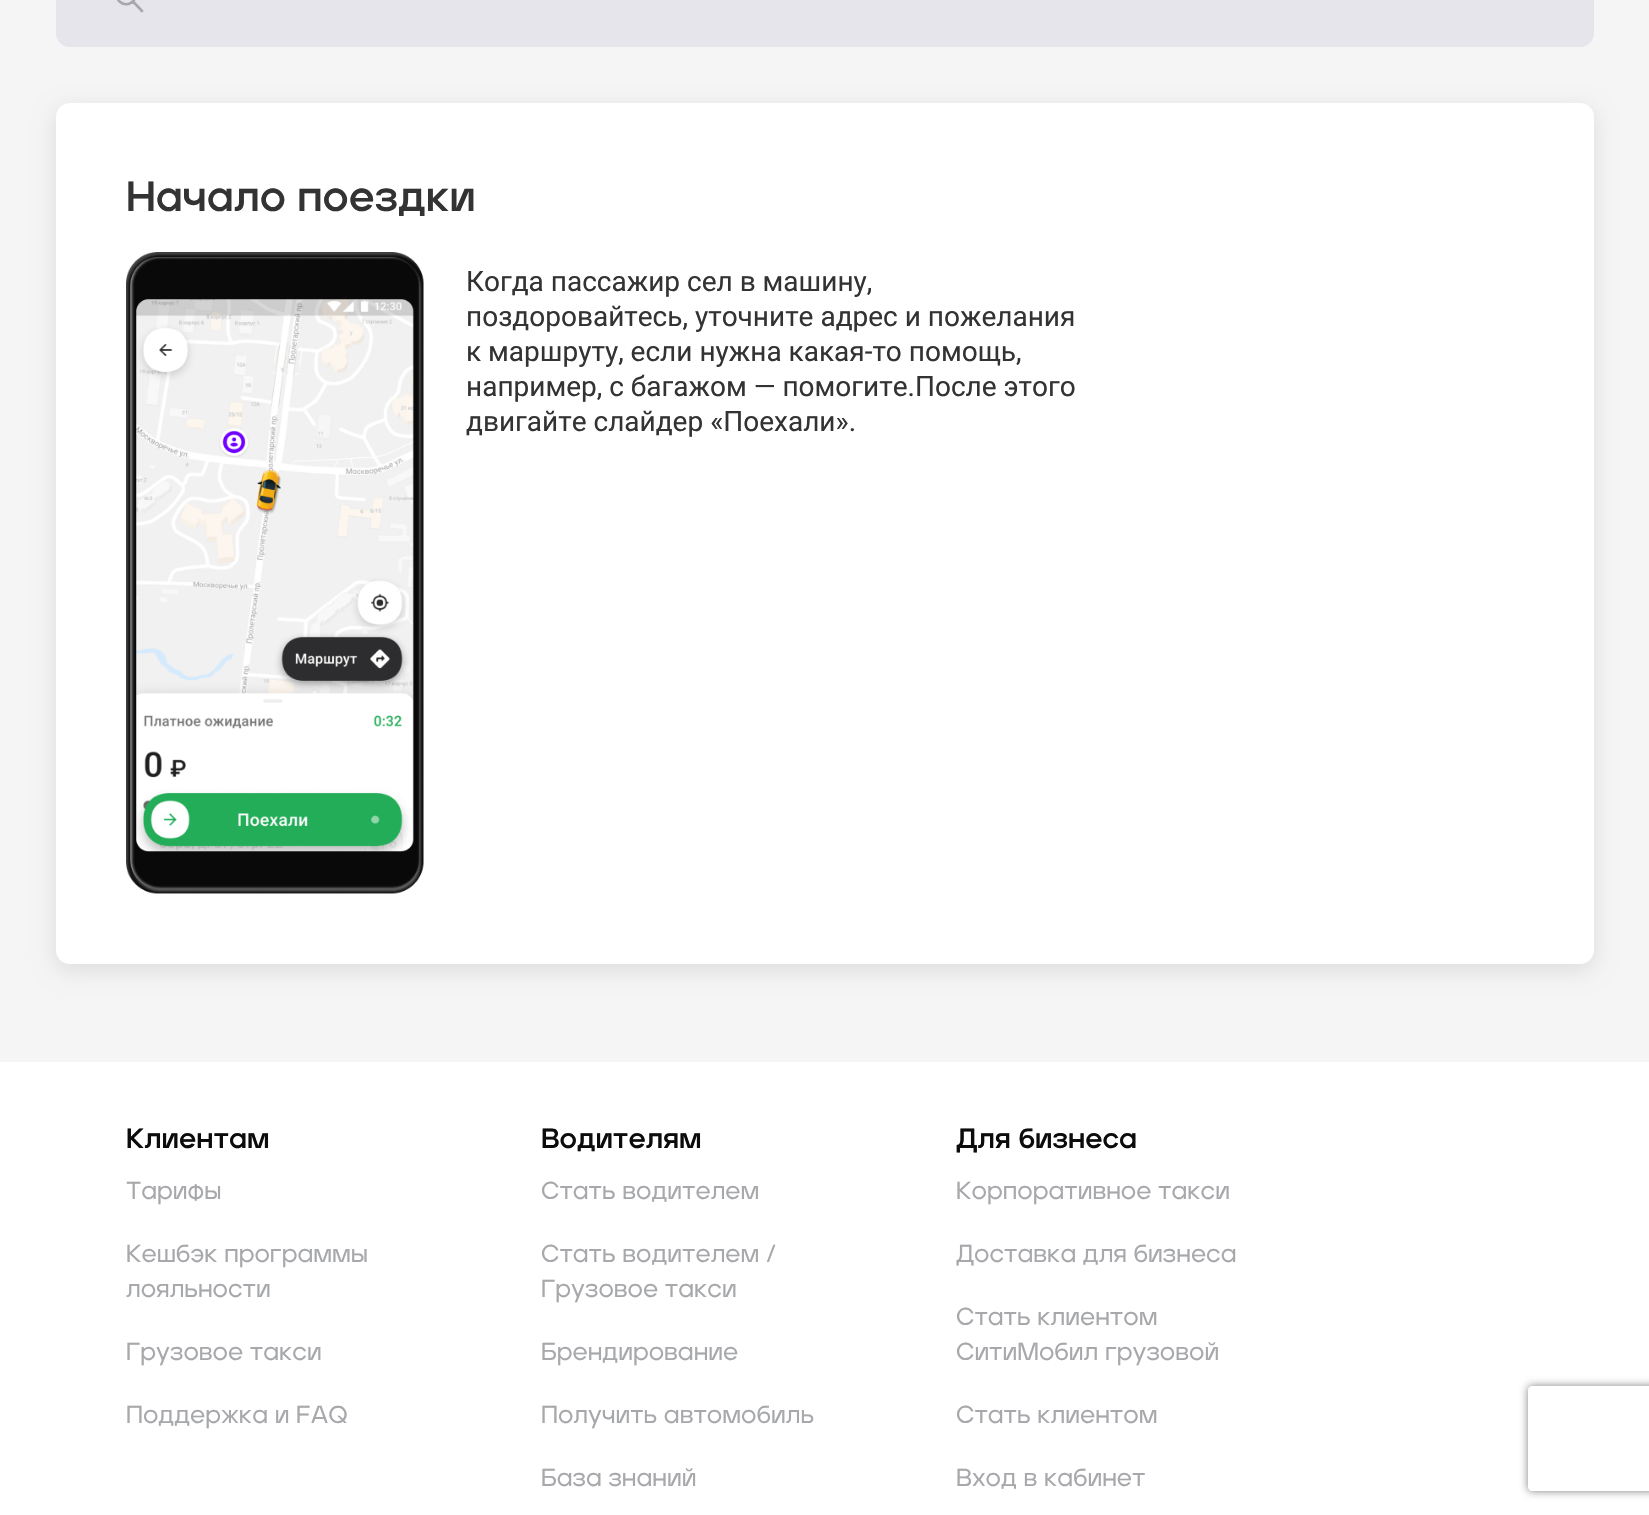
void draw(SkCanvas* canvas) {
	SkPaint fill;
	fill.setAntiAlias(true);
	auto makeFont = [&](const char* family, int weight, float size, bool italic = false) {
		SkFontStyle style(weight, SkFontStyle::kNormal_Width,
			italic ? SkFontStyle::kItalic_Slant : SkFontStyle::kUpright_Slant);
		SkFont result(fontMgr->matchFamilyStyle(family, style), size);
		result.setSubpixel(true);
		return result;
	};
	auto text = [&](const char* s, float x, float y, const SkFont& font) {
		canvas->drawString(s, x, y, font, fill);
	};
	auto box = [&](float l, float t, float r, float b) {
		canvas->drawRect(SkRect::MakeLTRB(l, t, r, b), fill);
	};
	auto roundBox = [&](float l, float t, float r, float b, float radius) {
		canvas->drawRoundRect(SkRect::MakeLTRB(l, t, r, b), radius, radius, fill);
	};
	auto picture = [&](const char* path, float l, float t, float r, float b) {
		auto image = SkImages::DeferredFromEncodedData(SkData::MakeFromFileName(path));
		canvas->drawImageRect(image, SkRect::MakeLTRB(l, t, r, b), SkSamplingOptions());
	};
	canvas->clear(0xFFFFFFFF);
	fill.setColor(0xFFF5F5F5);
	box(0, 0, 1649, 1062);
	fill.setColor(0xFFE5E5EB);
	roundBox(56, -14, 1594, 47, 14);
	fill.setStyle(SkPaint::kStroke_Style);
	fill.setStrokeWidth(2.6f);
	fill.setStrokeCap(SkPaint::kRound_Cap);
	fill.setStrokeJoin(SkPaint::kRound_Join);
	fill.setColor(0xFFA7A8AB);
	canvas->drawPath(SkPathBuilder().moveTo(133, -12).cubicTo(141.5f, -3, 128.5f, 10, 119.5f, 1.5f).cubicTo(111, -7.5f, 124, -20.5f, 133, -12).moveTo(133, 1.5f).lineTo(142, 11).detach(), fill);
	fill.setStyle(SkPaint::kFill_Style);
	fill.setColor(0x1A000000);
	fill.setMaskFilter(SkMaskFilter::MakeBlur(kNormal_SkBlurStyle, 10.5f));
	canvas->drawRoundRect(SkRect::MakeLTRB(56, 109, 1594, 970), 14, 14, fill);
	fill.setMaskFilter(nullptr);
	fill.setColor(0xFFFFFFFF);
	roundBox(56, 103, 1594, 964, 14);
	picture("image0.png", 126, 252, 424, 894);
	canvas->save();
	canvas->clipPath(SkPathBuilder(SkPathFillType::kEvenOdd).moveTo(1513, 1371).lineTo(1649, 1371).lineTo(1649, 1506).lineTo(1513, 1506).close().moveTo(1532, 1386).lineTo(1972, 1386).cubicTo(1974, 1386, 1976, 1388, 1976, 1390).lineTo(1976, 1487).cubicTo(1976, 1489, 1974, 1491, 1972, 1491).lineTo(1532, 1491).cubicTo(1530, 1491, 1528, 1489, 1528, 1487).lineTo(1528, 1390).cubicTo(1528, 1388, 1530, 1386, 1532, 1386).close().detach(), true);
	fill.setColor(0xFF808080);
	fill.setMaskFilter(SkMaskFilter::MakeBlur(kNormal_SkBlurStyle, 4.5f));
	canvas->drawRoundRect(SkRect::MakeLTRB(1528, 1386, 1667, 1491), 4, 4, fill);
	fill.setMaskFilter(nullptr);
	canvas->restore();
	auto font1 = makeFont("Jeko", 700, 42);
	fill.setColor(0xFF333333);
	text("Начало поездки", 126, 211, font1);
	auto font2 = makeFont("Roboto", 400, 28);
	text("Когда пассажир сел в машину,", 466, 291, font2);
	text("поздоровайтесь, уточните адрес и пожелания", 466, 326, font2);
	text("к маршруту, если нужна какая-то помощь,", 466, 361, font2);
	text("например, с багажом — помогите.После этого", 466, 396, font2);
	text("двигайте слайдер «Поехали».", 466, 431, font2);
	auto font3 = makeFont("Jeko", 700, 28);
	fill.setColor(0xFF0C0C0C);
	text("Клиентам", 126, 1148, font3);
	auto font4 = makeFont("Jeko", 500, 24.5f);
	fill.setColor(0xFFA7A8AB);
	text("Тарифы", 126, 1199, font4);
	text("Кешбэк программы", 126, 1262, font4);
	text("лояльности", 126, 1297, font4);
	text("Грузовое такси", 126, 1360, font4);
	text("Поддержка и FAQ", 126, 1423, font4);
	fill.setColor(0xFF0C0C0C);
	text("Водителям", 541, 1148, font3);
	fill.setColor(0xFFA7A8AB);
	text("Стать водителем", 541, 1199, font4);
	text("Стать водителем /", 541, 1262, font4);
	text("Грузовое такси", 541, 1297, font4);
	text("Брендирование", 541, 1360, font4);
	text("Получить автомобиль", 541, 1423, font4);
	text("База знаний", 541, 1486, font4);
	fill.setColor(0xFF0C0C0C);
	text("Для бизнеса", 956, 1148, font3);
	fill.setColor(0xFFA7A8AB);
	text("Корпоративное такси", 956, 1199, font4);
	text("Доставка для бизнеса", 956, 1262, font4);
	text("Стать клиентом", 956, 1325, font4);
	text("СитиМобил грузовой", 956, 1360, font4);
	text("Стать клиентом", 956, 1423, font4);
	text("Вход в кабинет", 956, 1486, font4);
}
